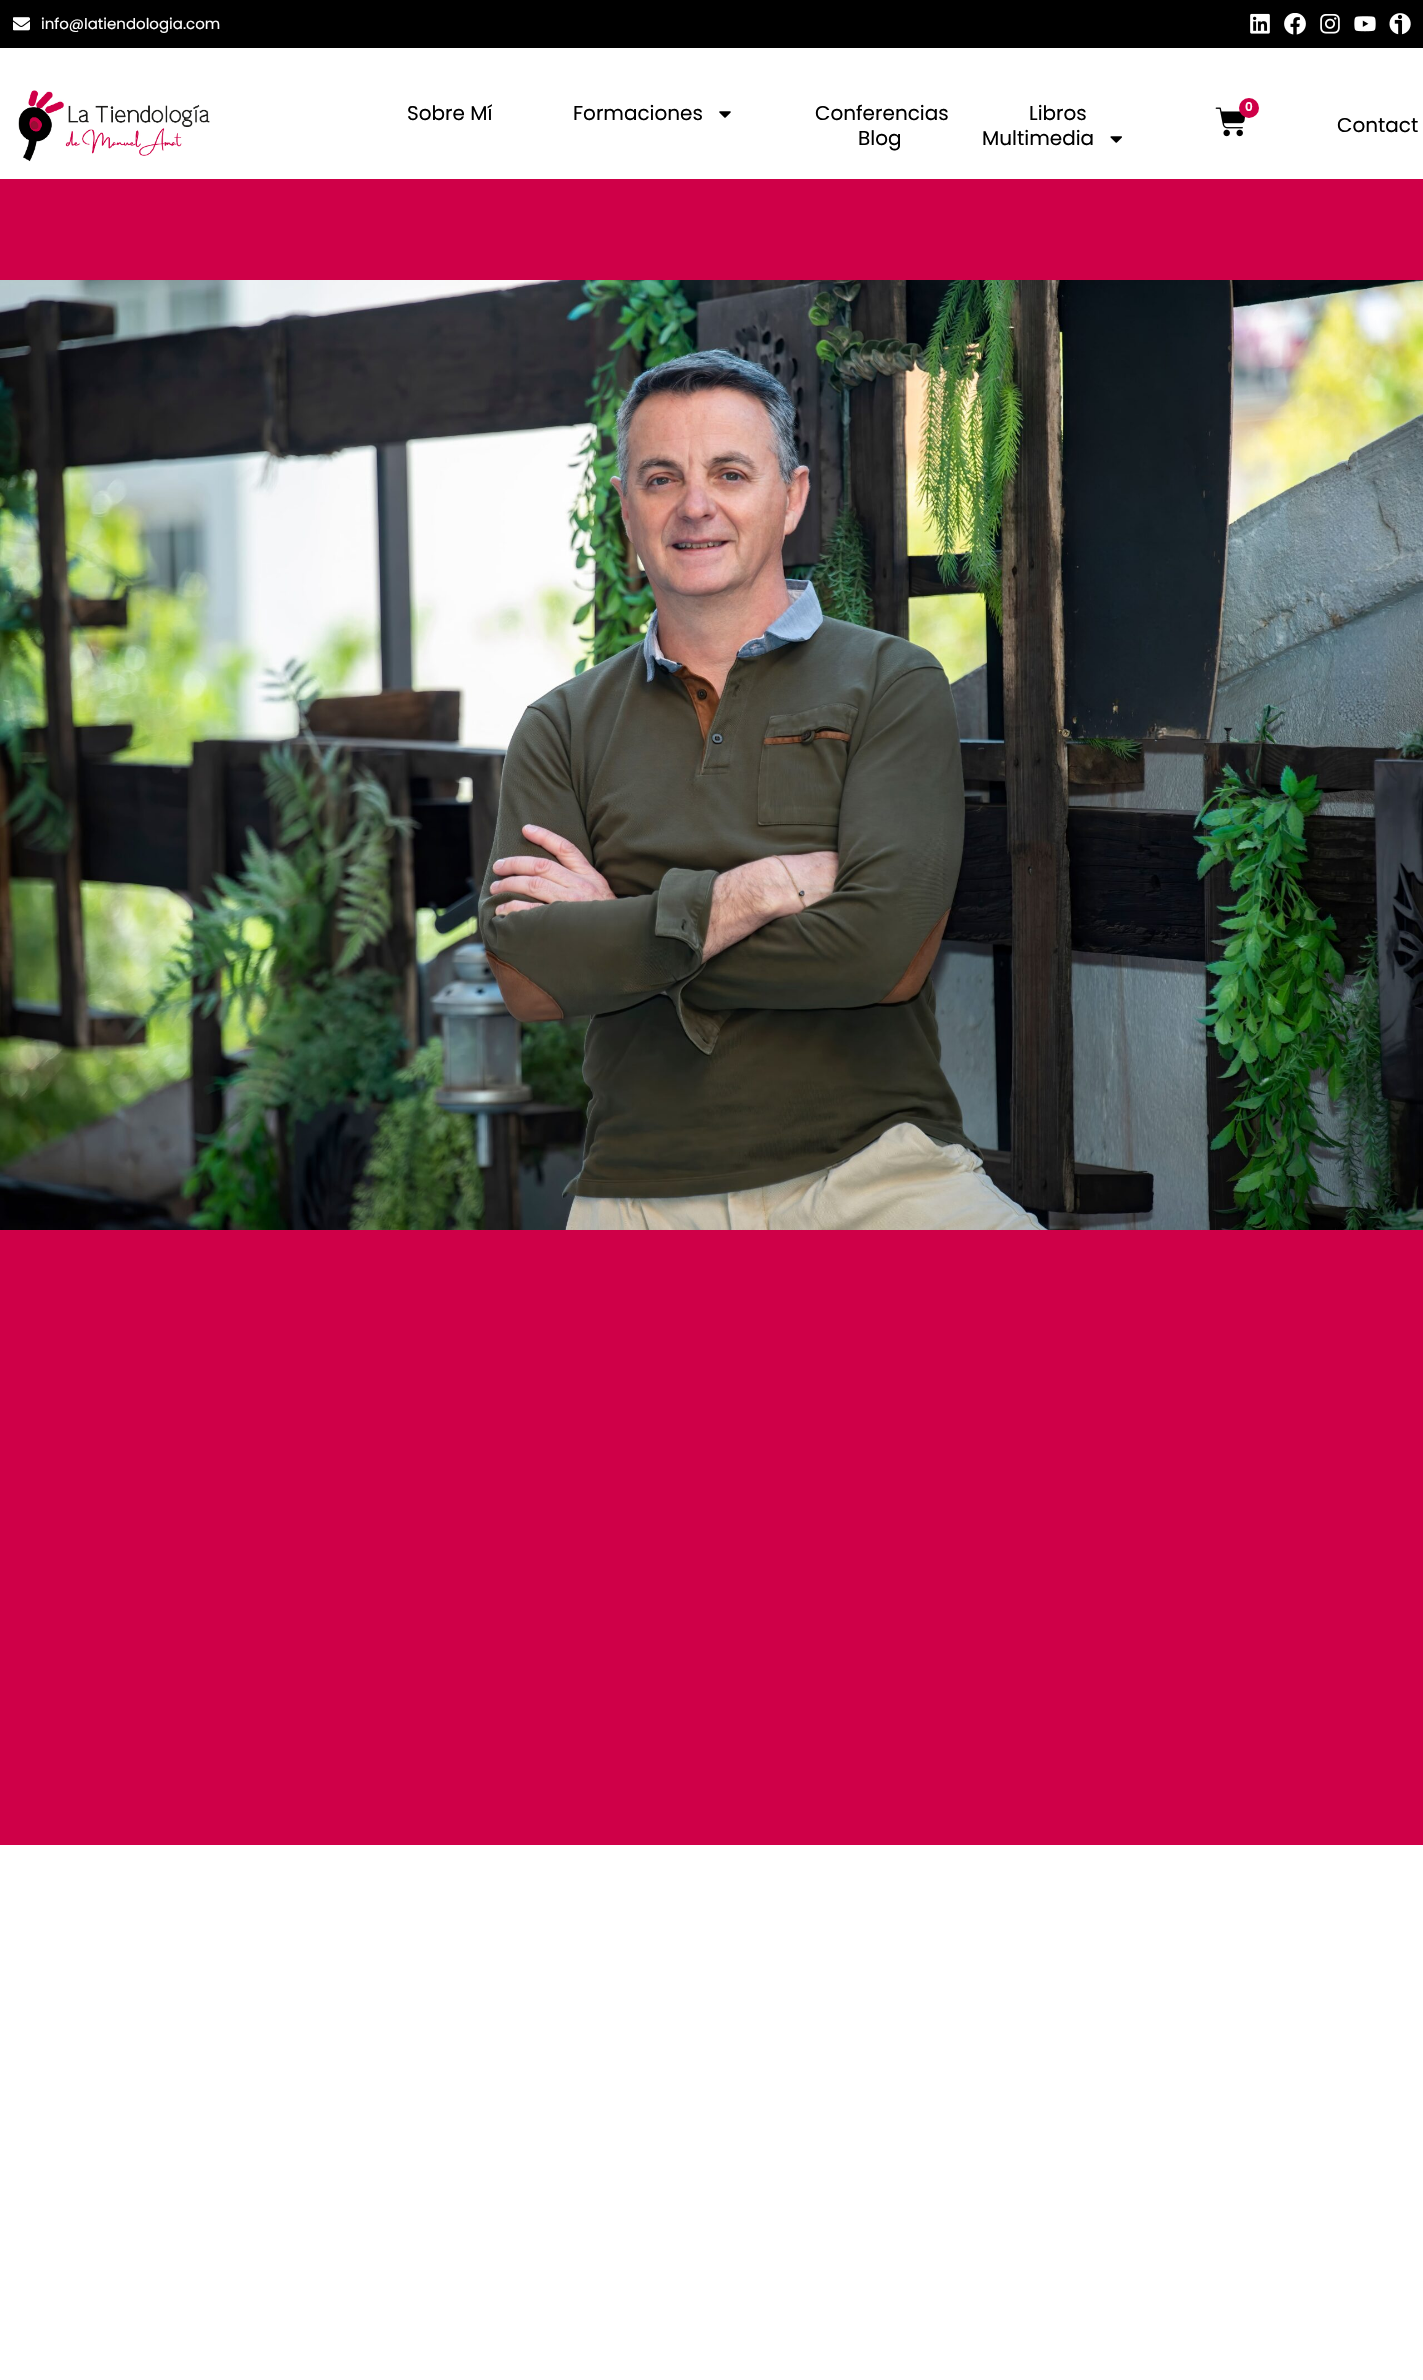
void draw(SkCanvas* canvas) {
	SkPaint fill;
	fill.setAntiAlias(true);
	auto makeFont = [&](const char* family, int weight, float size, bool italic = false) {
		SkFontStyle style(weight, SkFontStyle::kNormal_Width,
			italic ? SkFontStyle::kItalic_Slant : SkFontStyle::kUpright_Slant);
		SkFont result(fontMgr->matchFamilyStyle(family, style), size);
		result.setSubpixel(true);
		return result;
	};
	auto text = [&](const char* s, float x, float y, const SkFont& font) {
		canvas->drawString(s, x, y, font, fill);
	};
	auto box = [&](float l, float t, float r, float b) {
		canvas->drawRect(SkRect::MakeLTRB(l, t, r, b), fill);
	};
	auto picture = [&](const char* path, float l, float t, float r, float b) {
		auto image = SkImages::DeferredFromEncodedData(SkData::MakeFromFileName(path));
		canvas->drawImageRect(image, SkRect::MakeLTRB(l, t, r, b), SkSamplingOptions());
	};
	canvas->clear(0xFFFFFFFF);
	fill.setColor(0xFF000000);
	box(0, 0, 1423, 48);
	picture("image0.png", 13, 17, 30, 31);
	picture("image1.png", 1250, 13, 1270, 34);
	picture("image2.png", 1284, 13, 1306, 35);
	picture("image3.png", 1320, 14, 1340, 34);
	picture("image4.png", 1354, 16, 1376, 32);
	picture("image5.png", 1389, 13, 1411, 35);
	picture("image6.png", 18, 90, 210, 162);
	picture("image7.png", 719, 111, 731, 118);
	picture("image8.png", 1110, 136, 1122, 143);
	picture("image9.png", 1215, 107, 1245, 137);
	fill.setColor(0xFFCF0048);
	canvas->drawCircle(1249, 108, 10, fill);
	box(0, 179, 1423, 1845);
	picture("image10.png", 0, 280, 1423, 1230);
	auto font1 = makeFont("Poppins", 400, 15);
	fill.setColor(0xFFFFFFFF);
	text("info@latiendologia.com", 41, 29, font1);
	auto font2 = makeFont("Poppins", 400, 20);
	fill.setColor(0xFF000000);
	text("Sobre Mí", 407, 120, font2);
	text("Formaciones", 573, 120, font2);
	text("Conferencias", 815, 120, font2);
	text("Libros", 1029, 120, font2);
	text("Blog", 858, 145, font2);
	text("Multimedia", 982, 145, font2);
	auto font3 = makeFont("Poppins", 600, 12);
	fill.setColor(0xFFFFFFFF);
	text("0", 1245, 111, font3);
	fill.setColor(0xFF000000);
	text("Contact", 1337, 132, font2);
}
